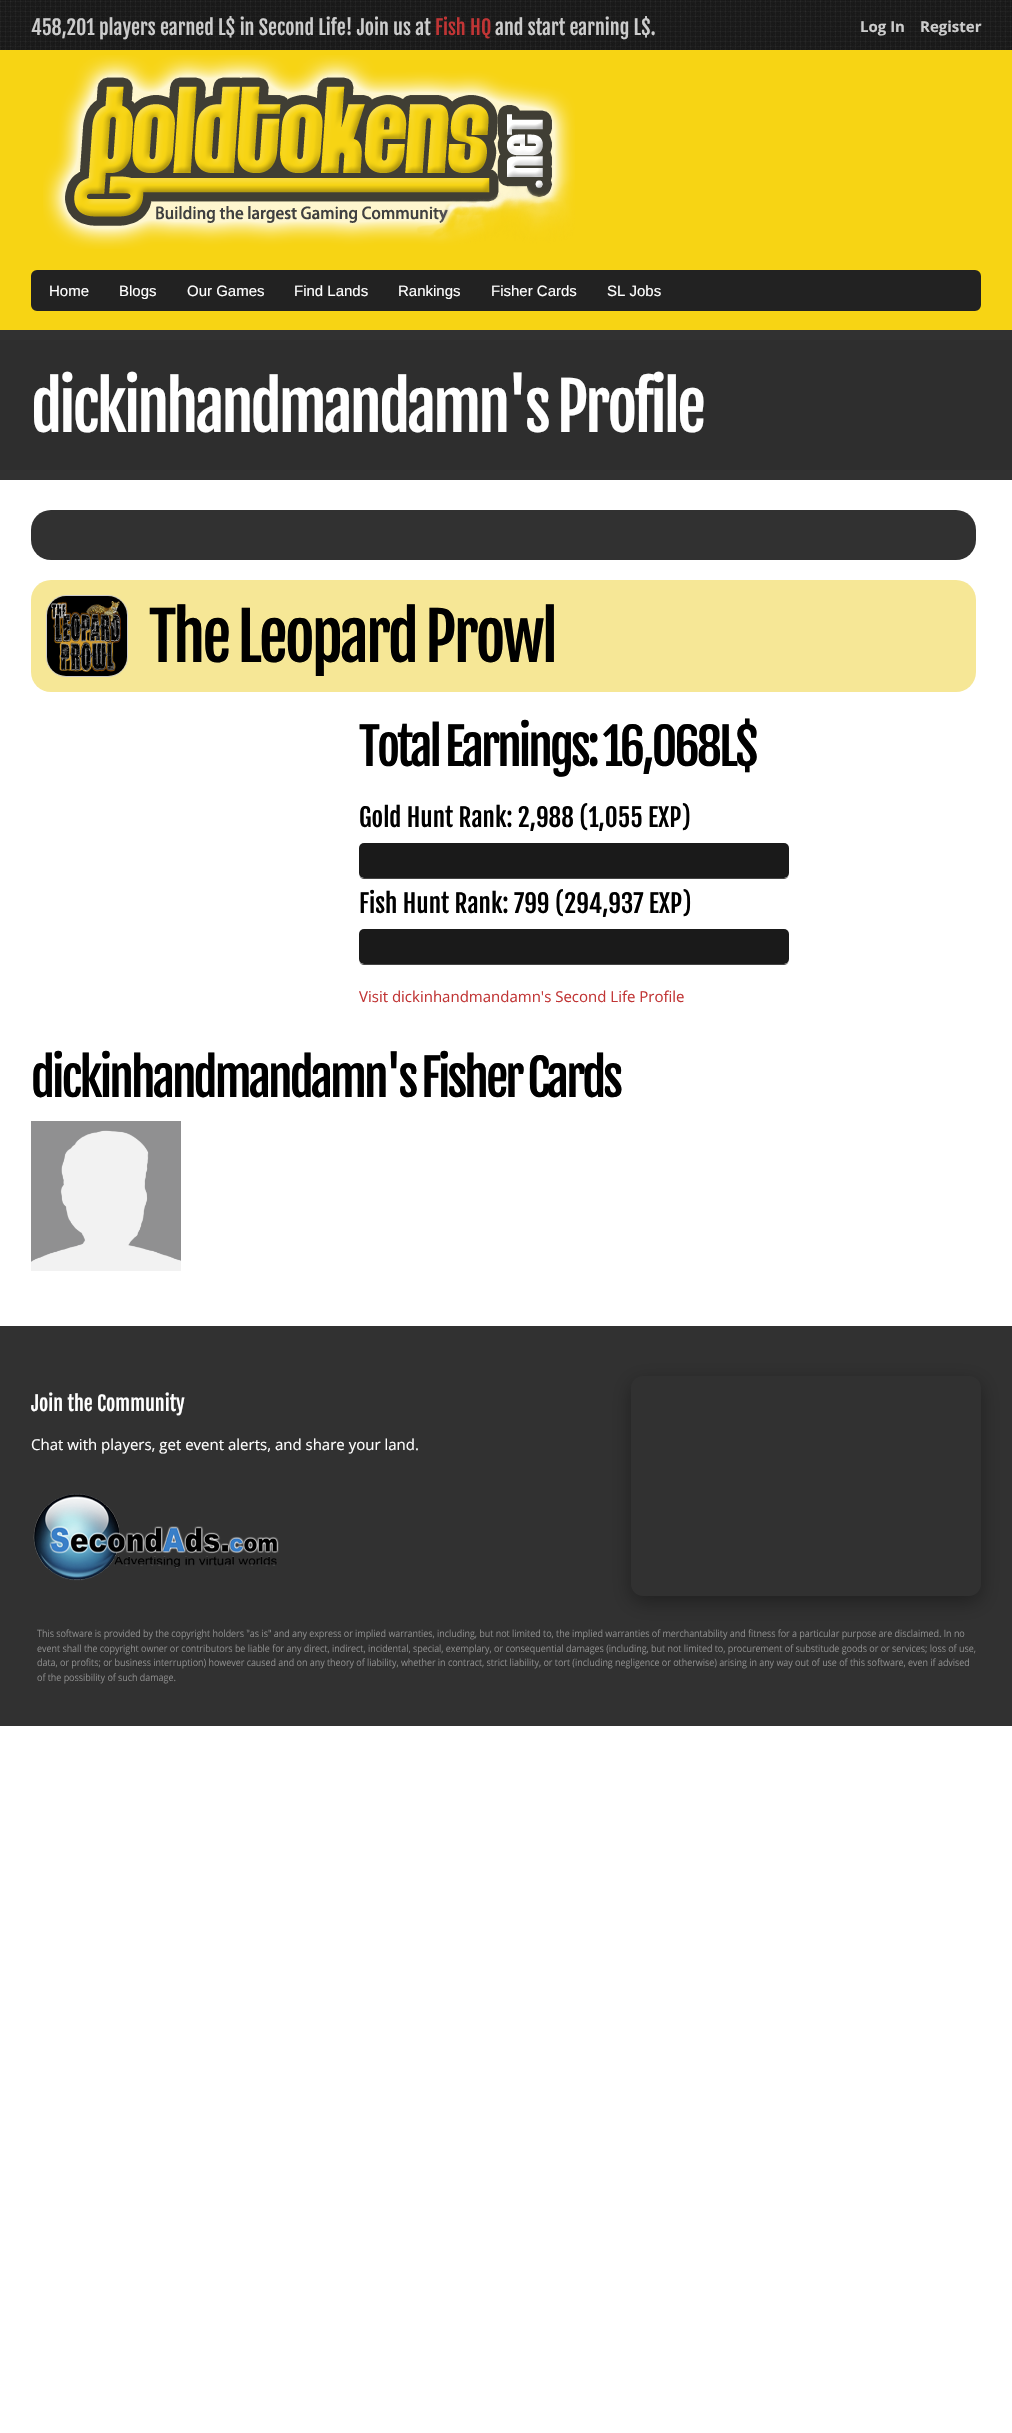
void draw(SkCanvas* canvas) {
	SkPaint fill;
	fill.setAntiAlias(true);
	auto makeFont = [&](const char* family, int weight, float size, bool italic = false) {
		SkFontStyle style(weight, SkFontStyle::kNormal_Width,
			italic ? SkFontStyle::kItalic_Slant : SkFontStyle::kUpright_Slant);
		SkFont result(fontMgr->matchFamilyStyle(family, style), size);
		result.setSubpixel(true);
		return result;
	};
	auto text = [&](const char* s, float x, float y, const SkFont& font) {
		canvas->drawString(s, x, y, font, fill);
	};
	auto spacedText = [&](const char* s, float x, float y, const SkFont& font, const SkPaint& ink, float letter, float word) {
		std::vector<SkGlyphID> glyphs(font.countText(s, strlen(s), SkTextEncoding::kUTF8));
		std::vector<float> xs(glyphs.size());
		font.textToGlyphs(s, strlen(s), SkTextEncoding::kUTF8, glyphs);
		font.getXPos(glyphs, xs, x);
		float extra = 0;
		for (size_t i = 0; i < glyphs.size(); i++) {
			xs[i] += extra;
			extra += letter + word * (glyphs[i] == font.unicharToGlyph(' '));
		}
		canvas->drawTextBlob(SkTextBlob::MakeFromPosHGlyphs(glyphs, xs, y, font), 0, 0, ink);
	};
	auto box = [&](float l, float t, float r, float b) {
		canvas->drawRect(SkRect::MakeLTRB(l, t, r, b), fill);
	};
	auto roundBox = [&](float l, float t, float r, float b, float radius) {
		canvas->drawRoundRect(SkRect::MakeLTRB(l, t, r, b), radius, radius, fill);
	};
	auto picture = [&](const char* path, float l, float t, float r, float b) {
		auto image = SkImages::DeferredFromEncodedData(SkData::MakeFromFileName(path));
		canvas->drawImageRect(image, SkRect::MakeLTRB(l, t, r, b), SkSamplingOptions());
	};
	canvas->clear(0xFFFFFFFF);
	picture("image0.png", 0, 0, 1012, 50);
	fill.setColor(0xFFF7D414);
	box(0, 50, 1012, 330);
	picture("image1.png", 43, 55, 575, 249);
	fill.setColor(0xFF222222);
	canvas->drawRoundRect(SkRect::MakeLTRB(32.5f, 271.5f, 979.5f, 309.5f), 4.5f, 4.5f, fill);
	fill.setStyle(SkPaint::kStroke_Style);
	fill.setStrokeWidth(3);
	canvas->drawRoundRect(SkRect::MakeLTRB(32.5f, 271.5f, 979.5f, 309.5f), 4.5f, 4.5f, fill);
	fill.setStyle(SkPaint::kFill_Style);
	fill.setColor(0xFF2E2E2E);
	box(0, 340, 1012, 470);
	fill.setColor(0xFF313131);
	box(0, 330, 1012, 340);
	box(0, 470, 1012, 480);
	roundBox(31, 510, 976, 560, 20);
	fill.setColor(0xFFF6E796);
	roundBox(31, 580, 976, 692, 20);
	fill.setStyle(SkPaint::kStroke_Style);
	fill.setStrokeWidth(1);
	fill.setColor(0xFFCBCBCB);
	canvas->drawRoundRect(SkRect::MakeLTRB(46.5f, 595.5f, 127.5f, 676.5f), 19.5f, 19.5f, fill);
	picture("image2.png", 47, 596, 127, 676);
	fill.setStyle(SkPaint::kFill_Style);
	fill.setColor(0xFF444444);
	canvas->drawPath(SkPathBuilder().moveTo(359, 873).cubicTo(359, 876, 361, 879, 364, 879).lineTo(784, 879).cubicTo(787, 879, 789, 876, 789, 873).cubicTo(789, 876, 787, 878, 784, 878).lineTo(364, 878).cubicTo(361, 878, 359, 876, 359, 873).close().detach(), fill);
	fill.setColor(0xFF1A1A1A);
	roundBox(359, 843, 789, 878, 5);
	fill.setColor(0xFF444444);
	canvas->drawPath(SkPathBuilder().moveTo(359, 959).cubicTo(359, 962, 361, 965, 364, 965).lineTo(784, 965).cubicTo(787, 965, 789, 962, 789, 959).cubicTo(789, 962, 787, 964, 784, 964).lineTo(364, 964).cubicTo(361, 964, 359, 962, 359, 959).close().detach(), fill);
	fill.setColor(0xFF1A1A1A);
	roundBox(359, 929, 789, 964, 5);
	picture("image3.png", 31, 1121, 181, 1271);
	fill.setColor(0xFF313131);
	box(0, 1326, 1012, 1726);
	picture("image4.png", 33, 1493, 279, 1581);
	picture("image5.png", 37, 1629, 976, 1684);
	canvas->save();
	canvas->clipPath(SkPathBuilder(SkPathFillType::kEvenOdd).moveTo(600, 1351).lineTo(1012, 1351).lineTo(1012, 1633).lineTo(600, 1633).close().moveTo(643, 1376).lineTo(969, 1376).cubicTo(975.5f, 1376, 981, 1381.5f, 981, 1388).lineTo(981, 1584).cubicTo(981, 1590.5f, 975.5f, 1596, 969, 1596).lineTo(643, 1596).cubicTo(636.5f, 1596, 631, 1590.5f, 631, 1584).lineTo(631, 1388).cubicTo(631, 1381.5f, 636.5f, 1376, 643, 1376).close().detach(), true);
	fill.setColor(0x59000000);
	fill.setMaskFilter(SkMaskFilter::MakeBlur(kNormal_SkBlurStyle, 10));
	canvas->drawRoundRect(SkRect::MakeLTRB(631, 1382, 981, 1602), 12, 12, fill);
	fill.setMaskFilter(nullptr);
	canvas->restore();
	auto font1 = makeFont("Fjalla One", 400, 20);
	fill.setColor(0xFFCCCCCC);
	text("458,201 players earned L$ in Second Life! Join us at", 31, 35, font1);
	fill.setColor(0xFFC13535);
	text("Fish HQ", 435, 35, font1);
	fill.setColor(0xFFCCCCCC);
	text("and start earning L$.", 495, 35, font1);
	auto font2 = makeFont("Open Sans", 700, 15);
	text("Log In", 860, 32, font2);
	text("Register", 920, 32, font2);
	auto font3 = makeFont("Liberation Sans", 400, 15);
	fill.setColor(0xFFFFFFFF);
	text("Home", 49, 296, font3);
	text("Blogs", 119, 296, font3);
	text("Our Games", 187, 296, font3);
	text("Find Lands", 294, 296, font3);
	text("Rankings", 398, 296, font3);
	text("Fisher Cards", 491, 296, font3);
	text("SL Jobs", 607, 296, font3);
	auto font4 = makeFont("Fjalla One", 400, 65);
	spacedText("dickinhandmandamn's Profile", 31, 432, font4, fill, -3, -2);
	fill.setColor(0xFF000000);
	spacedText("The Leopard Prowl", 149, 662, font4, fill, -3, -2);
	auto font5 = makeFont("Fjalla One", 400, 50);
	spacedText("Total Earnings: 16,068L$", 359, 766, font5, fill, -3, -2);
	auto font6 = makeFont("Fjalla One", 400, 25);
	text("Gold Hunt Rank: 2,988 (1,055 EXP)", 359, 827, font6);
	text("Fish Hunt Rank: 799 (294,937 EXP)", 359, 913, font6);
	auto font7 = makeFont("Open Sans", 400, 15);
	fill.setColor(0xFFC13535);
	text("Visit dickinhandmandamn's Second Life Profile", 359, 1002, font7);
	fill.setColor(0xFF000000);
	spacedText("dickinhandmandamn's Fisher Cards", 31, 1097, font5, fill, -3, -2);
	fill.setColor(0xFFFFFFFF);
	text("Join the Community", 31, 1411, font1);
	text("Chat with players, get event alerts, and share your land.", 31, 1450, font7);
}
